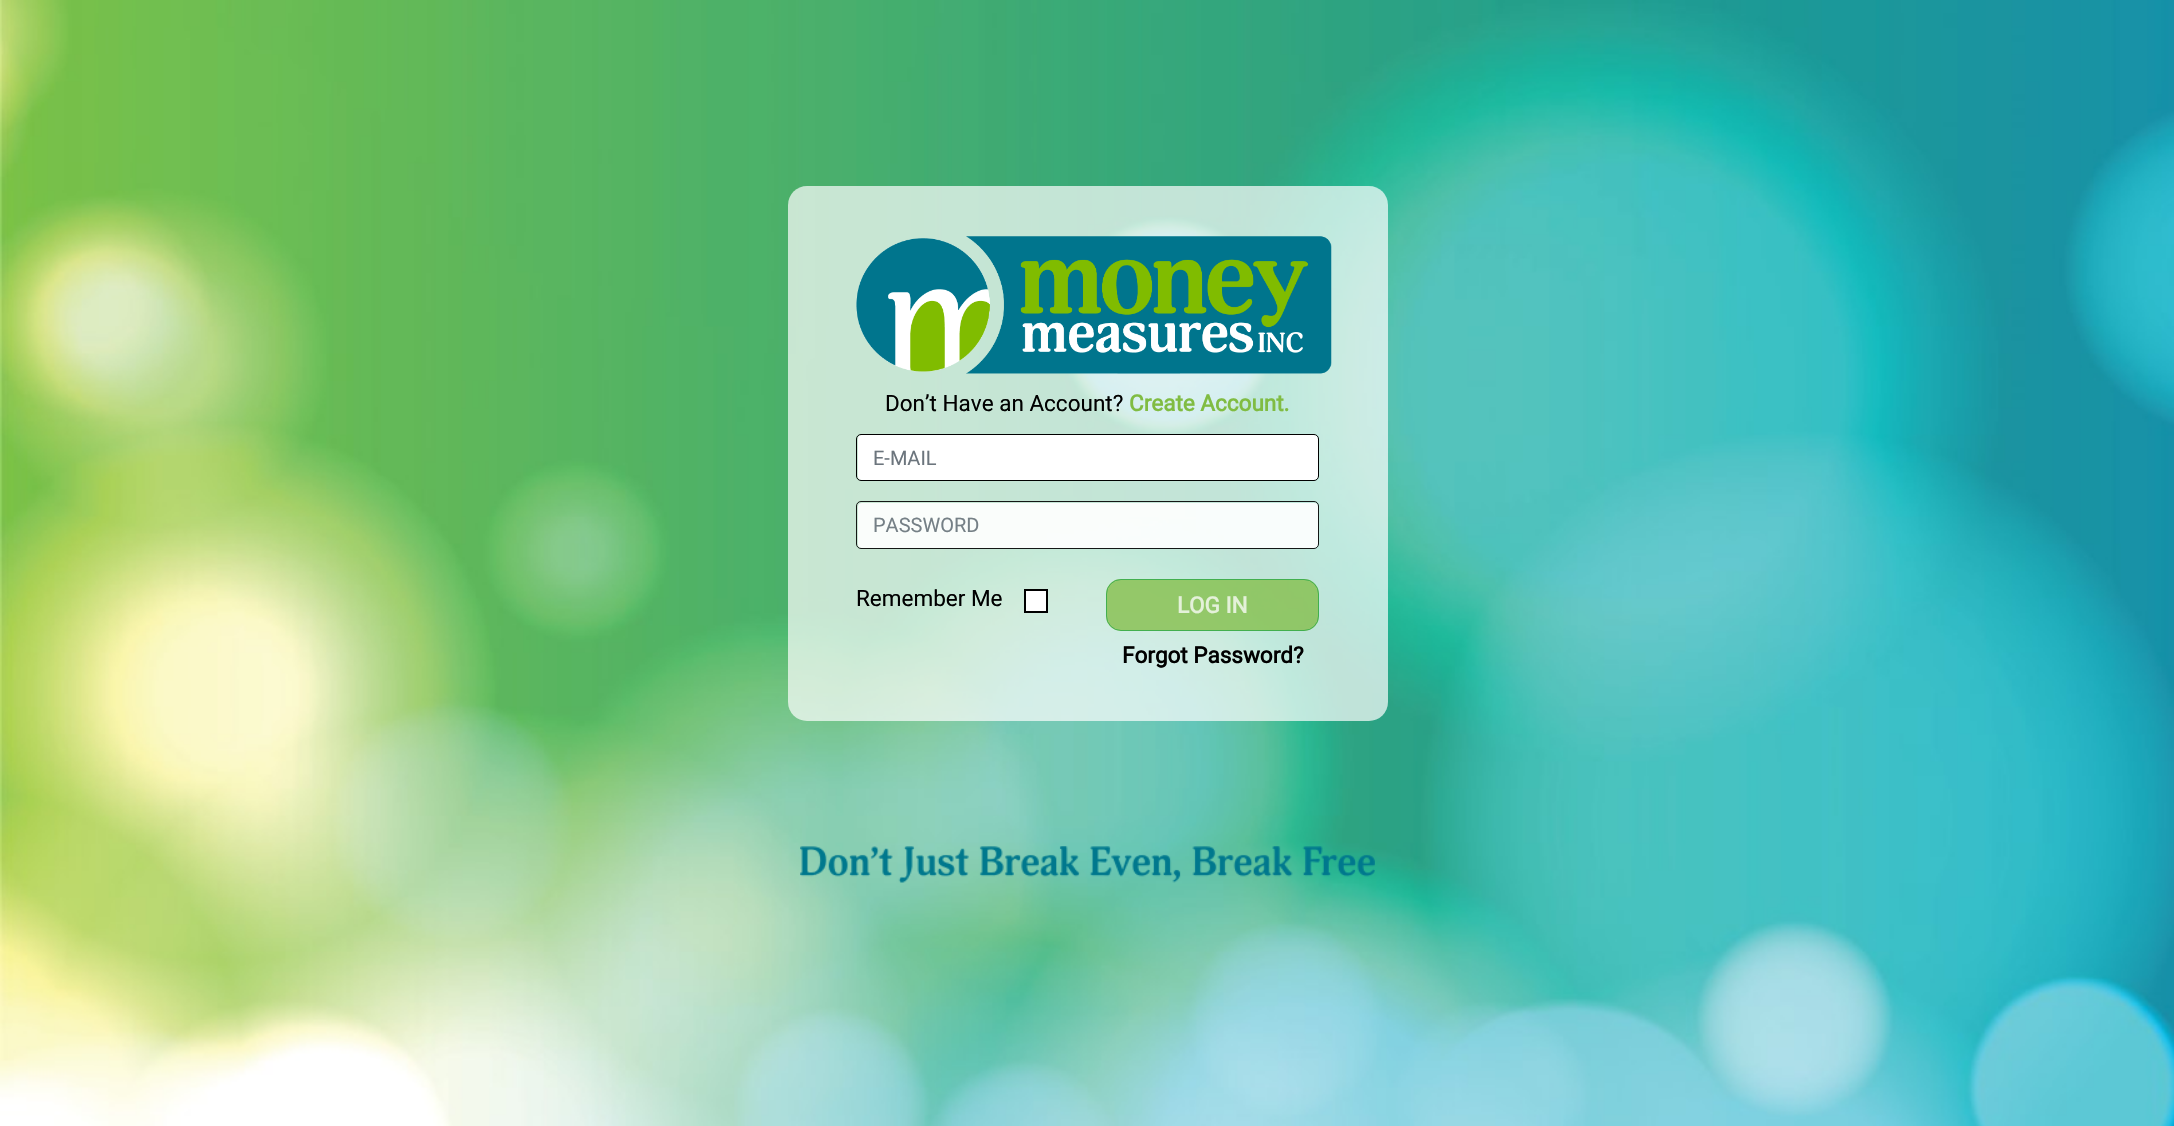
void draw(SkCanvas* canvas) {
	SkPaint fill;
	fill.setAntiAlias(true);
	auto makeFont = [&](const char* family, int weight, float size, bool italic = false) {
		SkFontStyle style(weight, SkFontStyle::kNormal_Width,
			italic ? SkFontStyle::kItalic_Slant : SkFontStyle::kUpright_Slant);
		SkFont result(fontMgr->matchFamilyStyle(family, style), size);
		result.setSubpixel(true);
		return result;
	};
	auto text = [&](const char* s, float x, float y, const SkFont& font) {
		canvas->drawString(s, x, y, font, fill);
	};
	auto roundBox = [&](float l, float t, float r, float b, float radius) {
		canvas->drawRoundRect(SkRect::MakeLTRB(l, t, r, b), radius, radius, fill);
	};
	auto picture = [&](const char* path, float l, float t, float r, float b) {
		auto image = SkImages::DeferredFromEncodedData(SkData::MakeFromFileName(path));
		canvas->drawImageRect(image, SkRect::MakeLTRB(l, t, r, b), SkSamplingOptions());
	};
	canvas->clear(0xFFFFFFFF);
	picture("image0.png", 0, 0, 2174, 1126);
	fill.setColor(0xB3FEFEFE);
	roundBox(788, 186, 1388, 721, 19);
	picture("image1.png", 856, 236, 1332, 374);
	fill.setColor(0xFFFFFFFF);
	roundBox(858, 435, 1318, 480, 4);
	fill.setStyle(SkPaint::kStroke_Style);
	fill.setStrokeWidth(1);
	fill.setColor(0xFF000000);
	canvas->drawRoundRect(SkRect::MakeLTRB(856.5f, 434.5f, 1318.5f, 480.5f), 4.5f, 4.5f, fill);
	fill.setStyle(SkPaint::kFill_Style);
	fill.setColor(0xE6FFFFFF);
	roundBox(858, 503, 1318, 548, 4);
	fill.setStyle(SkPaint::kStroke_Style);
	fill.setColor(0xE6000000);
	canvas->drawRoundRect(SkRect::MakeLTRB(856.5f, 501.5f, 1318.5f, 548.5f), 4.5f, 4.5f, fill);
	fill.setStyle(SkPaint::kFill_Style);
	fill.setColor(0xFFFFFFFF);
	canvas->drawRect(SkRect::MakeLTRB(1025, 590, 1047, 612), fill);
	fill.setStyle(SkPaint::kStroke_Style);
	fill.setStrokeWidth(2);
	fill.setColor(0xFF000000);
	canvas->drawRect(SkRect::MakeLTRB(1025, 590, 1047, 612), fill);
	fill.setStyle(SkPaint::kFill_Style);
	fill.setColor(0xBF80BC42);
	roundBox(1106, 579, 1319, 631, 15);
	fill.setStyle(SkPaint::kStroke_Style);
	fill.setStrokeWidth(1);
	fill.setColor(0xBF28A745);
	canvas->drawRoundRect(SkRect::MakeLTRB(1106.5f, 579.5f, 1318.5f, 630.5f), 14.5f, 14.5f, fill);
	picture("image2.png", 800, 846, 1375, 883);
	auto font1 = makeFont("Roboto", 400, 22.5f);
	fill.setStyle(SkPaint::kFill_Style);
	fill.setColor(0xFF000000);
	text("Don’t Have an Account?", 885, 411, font1);
	auto font2 = makeFont("Roboto", 700, 22.5f);
	fill.setColor(0xFF80BC42);
	text("Create Account.", 1129, 411, font2);
	auto font3 = makeFont("Roboto", 400, 20);
	fill.setColor(0xFF6C757D);
	text("E-MAIL", 873, 465, font3);
	fill.setColor(0xFF758086);
	text("PASSWORD", 873, 532, font3);
	fill.setColor(0xFF000000);
	text("Remember Me", 856, 606, font1);
	fill.setColor(0xFFE4F1D9);
	text("LOG IN", 1177, 613, font2);
	fill.setColor(0xFF000000);
	text("Forgot Password?", 1122, 663, font2);
}
